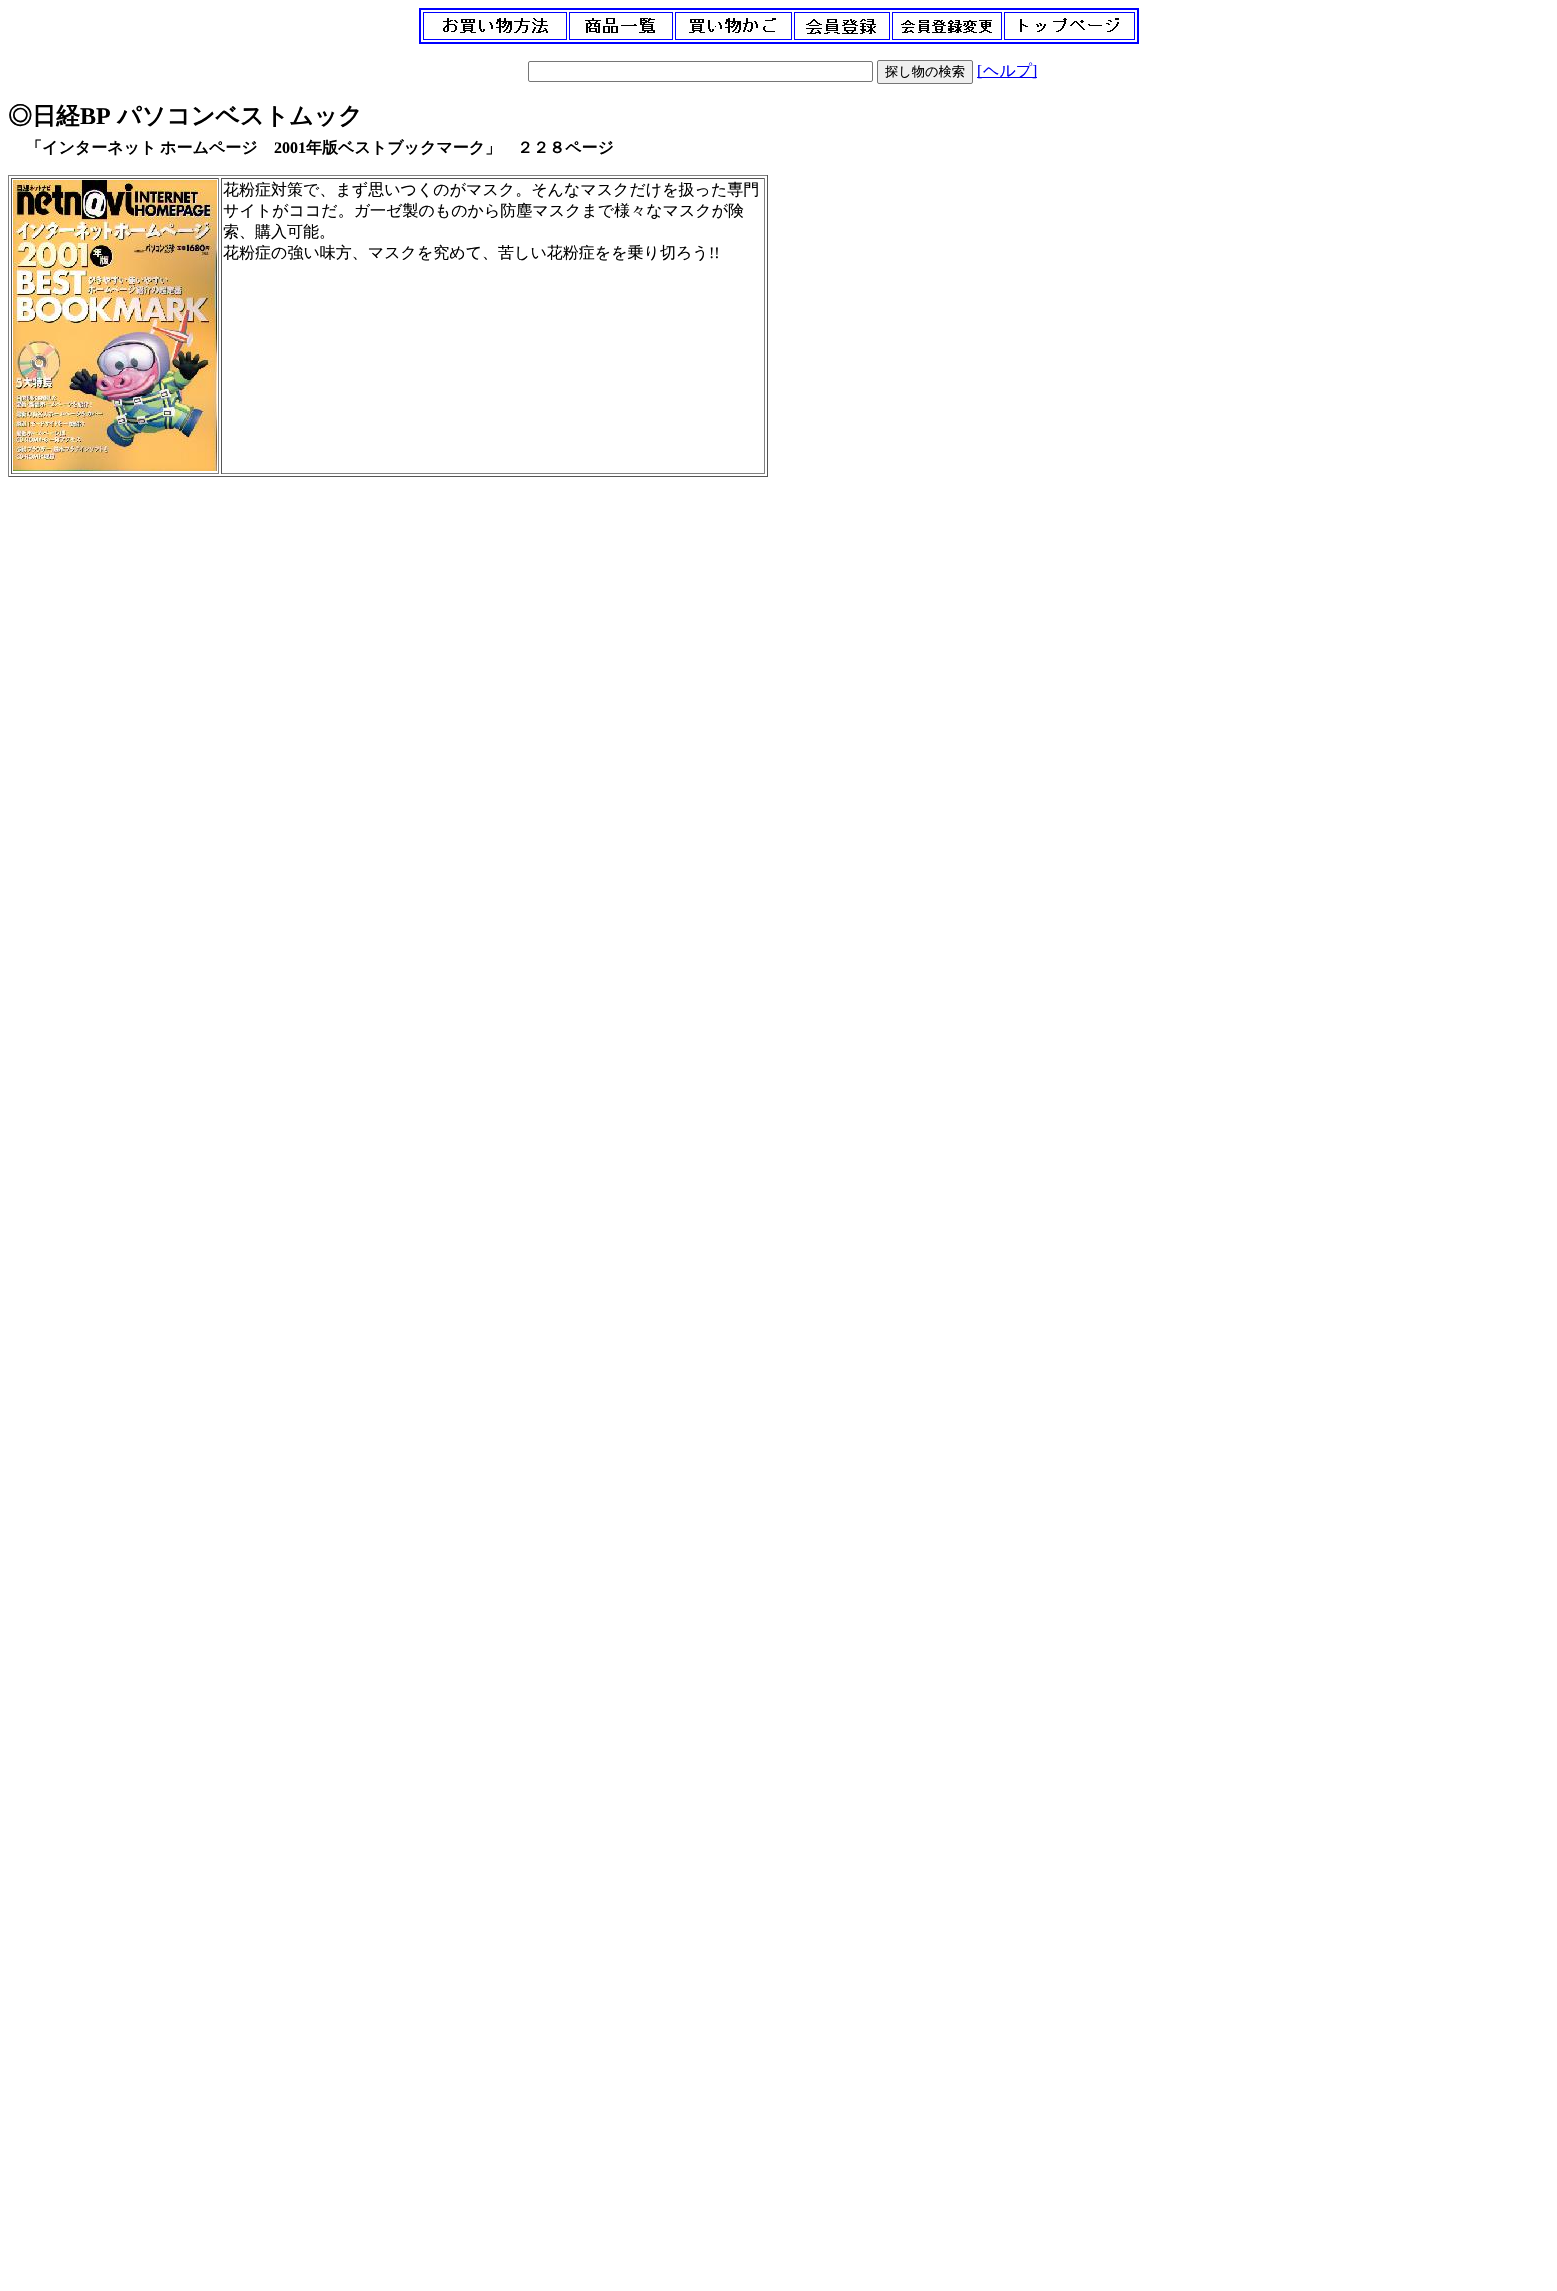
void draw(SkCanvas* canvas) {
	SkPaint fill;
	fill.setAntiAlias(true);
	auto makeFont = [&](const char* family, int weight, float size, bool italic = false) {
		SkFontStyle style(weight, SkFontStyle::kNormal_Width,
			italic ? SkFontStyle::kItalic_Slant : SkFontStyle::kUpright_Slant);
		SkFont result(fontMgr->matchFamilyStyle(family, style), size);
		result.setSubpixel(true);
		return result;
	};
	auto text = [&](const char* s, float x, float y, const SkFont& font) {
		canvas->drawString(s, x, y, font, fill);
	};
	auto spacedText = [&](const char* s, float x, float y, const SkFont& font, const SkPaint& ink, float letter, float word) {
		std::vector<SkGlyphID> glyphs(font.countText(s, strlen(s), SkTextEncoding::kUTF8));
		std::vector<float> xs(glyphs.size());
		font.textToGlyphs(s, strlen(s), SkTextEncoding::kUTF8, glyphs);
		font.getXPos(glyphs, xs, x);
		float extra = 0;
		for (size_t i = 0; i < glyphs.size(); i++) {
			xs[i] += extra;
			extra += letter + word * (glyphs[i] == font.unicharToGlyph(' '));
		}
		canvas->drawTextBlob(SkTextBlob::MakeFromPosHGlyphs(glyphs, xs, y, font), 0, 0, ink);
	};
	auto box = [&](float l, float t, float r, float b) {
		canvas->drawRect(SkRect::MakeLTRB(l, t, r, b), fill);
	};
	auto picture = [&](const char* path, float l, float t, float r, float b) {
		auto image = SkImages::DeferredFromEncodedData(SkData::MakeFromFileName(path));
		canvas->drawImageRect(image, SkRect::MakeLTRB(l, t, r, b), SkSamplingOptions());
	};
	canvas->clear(0xFFFFFFFF);
	fill.setStyle(SkPaint::kStroke_Style);
	fill.setStrokeWidth(2);
	fill.setColor(0xFF0000FF);
	canvas->drawRect(SkRect::MakeLTRB(420, 9, 1138, 43), fill);
	fill.setStrokeWidth(1);
	canvas->drawRect(SkRect::MakeLTRB(423.5f, 12.5f, 566.5f, 39.5f), fill);
	picture("image0.png", 443, 18, 548, 33);
	canvas->drawRect(SkRect::MakeLTRB(569.5f, 12.5f, 672.5f, 39.5f), fill);
	picture("image1.png", 585, 18, 655, 33);
	canvas->drawRect(SkRect::MakeLTRB(675.5f, 12.5f, 791.5f, 39.5f), fill);
	picture("image2.png", 689, 18, 776, 33);
	canvas->drawRect(SkRect::MakeLTRB(794.5f, 12.5f, 889.5f, 39.5f), fill);
	picture("image3.png", 806, 19, 876, 34);
	canvas->drawRect(SkRect::MakeLTRB(892.5f, 12.5f, 1001.5f, 39.5f), fill);
	picture("image4.png", 901, 20, 992, 33);
	canvas->drawRect(SkRect::MakeLTRB(1004.5f, 12.5f, 1134.5f, 39.5f), fill);
	picture("image5.png", 1020, 18, 1119, 32);
	fill.setColor(0xFF767676);
	canvas->drawRoundRect(SkRect::MakeLTRB(528.5f, 61.5f, 872.5f, 81.5f), 1.5f, 1.5f, fill);
	fill.setStyle(SkPaint::kFill_Style);
	fill.setColor(0xFFEFEFEF);
	canvas->drawRoundRect(SkRect::MakeLTRB(877.5f, 60.5f, 972.5f, 83.5f), 1.5f, 1.5f, fill);
	fill.setStyle(SkPaint::kStroke_Style);
	fill.setColor(0xFF767676);
	canvas->drawRoundRect(SkRect::MakeLTRB(877.5f, 60.5f, 972.5f, 83.5f), 1.5f, 1.5f, fill);
	fill.setStyle(SkPaint::kFill_Style);
	fill.setColor(0xFF0000EE);
	box(977, 77, 1037, 78);
	fill.setColor(0xFF808080);
	box(8, 175, 768, 176);
	fill.setColor(0xFF555555);
	box(767, 175, 768, 477);
	box(8, 476, 768, 477);
	fill.setColor(0xFF808080);
	box(8, 175, 9, 477);
	fill.setColor(0xFF555555);
	box(11, 178, 219, 179);
	fill.setColor(0xFF808080);
	box(218, 178, 219, 474);
	box(11, 473, 219, 474);
	fill.setColor(0xFF555555);
	box(11, 178, 12, 474);
	picture("image6.png", 13, 180, 217, 471);
	box(221, 178, 765, 179);
	fill.setColor(0xFF808080);
	box(764, 178, 765, 474);
	box(221, 473, 765, 474);
	fill.setColor(0xFF555555);
	box(221, 178, 222, 474);
	auto font1 = makeFont("WenQuanYi Zen Hei", 500, 13.25f);
	fill.setColor(0xFF000000);
	text("探し物の検索", 885, 76, font1);
	auto font2 = makeFont("Liberation Serif", 400, 16);
	fill.setColor(0xFF0000EE);
	text("[", 977, 76, font2);
	auto font3 = makeFont("WenQuanYi Zen Hei", 500, 16);
	text("ヘルプ", 983, 76, font3);
	text("]", 1032, 76, font2);
	auto font4 = makeFont("WenQuanYi Zen Hei", 700, 24);
	fill.setColor(0xFF000000);
	text("◎日経", 8, 124, font4);
	auto font5 = makeFont("Liberation Serif", 700, 24);
	text("BP", 80, 124, font5);
	text("パソコンベストムック", 117, 124, font4);
	auto font6 = makeFont("WenQuanYi Zen Hei", 700, 16);
	spacedText("「インターネット ホームページ", 26, 153, font6, fill, 0, -1);
	auto font7 = makeFont("Liberation Serif", 700, 16);
	text("2001", 274, 153, font7);
	text("年版ベストブックマーク」　２２８ページ", 306, 153, font6);
	text("花粉症対策で、まず思いつくのがマスク。そんなマスクだけを扱った専門", 223, 195, font3);
	text("サイトがココだ。ガ一ゼ製のものから防塵マスクまで様々なマスクが険", 223, 216, font3);
	text("索、購入可能。", 223, 237, font3);
	text("花粉症の強い味方、マスクを究めて、苦しい花粉症をを乗り切ろう", 223, 258, font3);
	text("!!", 709, 258, font2);
}
